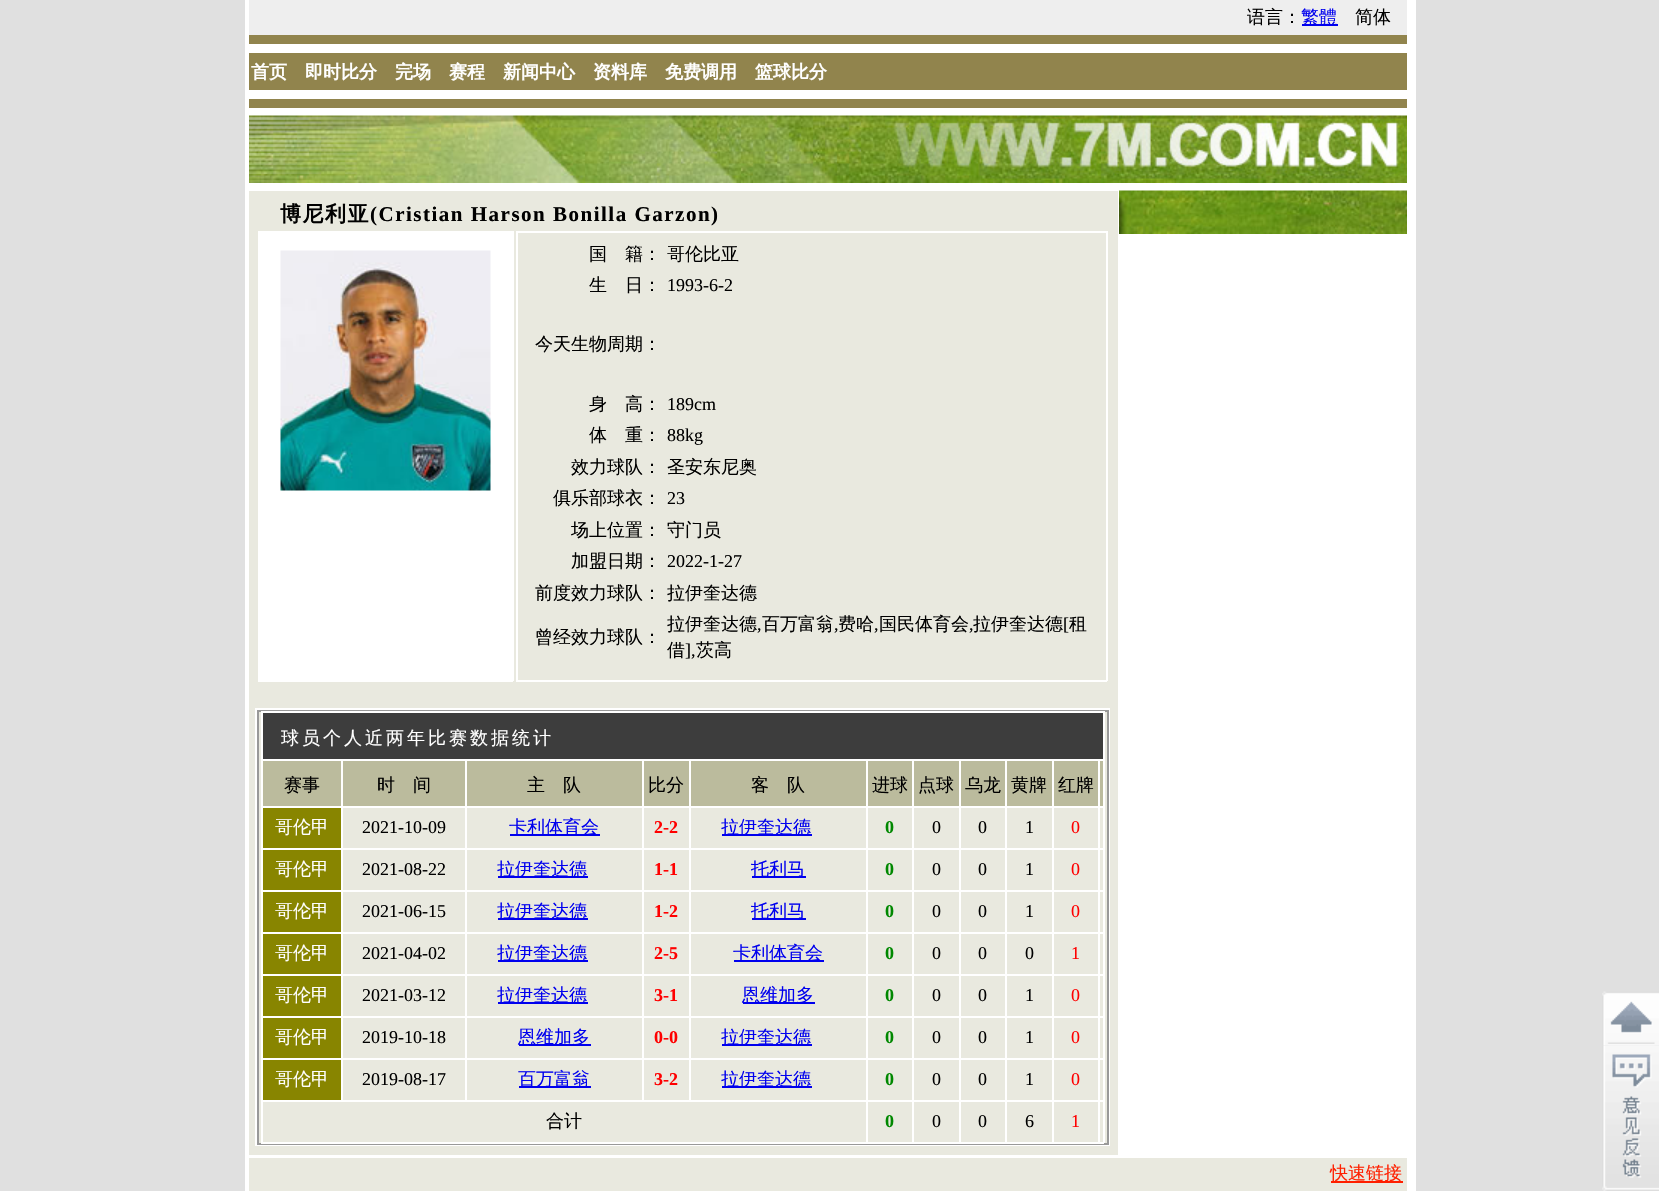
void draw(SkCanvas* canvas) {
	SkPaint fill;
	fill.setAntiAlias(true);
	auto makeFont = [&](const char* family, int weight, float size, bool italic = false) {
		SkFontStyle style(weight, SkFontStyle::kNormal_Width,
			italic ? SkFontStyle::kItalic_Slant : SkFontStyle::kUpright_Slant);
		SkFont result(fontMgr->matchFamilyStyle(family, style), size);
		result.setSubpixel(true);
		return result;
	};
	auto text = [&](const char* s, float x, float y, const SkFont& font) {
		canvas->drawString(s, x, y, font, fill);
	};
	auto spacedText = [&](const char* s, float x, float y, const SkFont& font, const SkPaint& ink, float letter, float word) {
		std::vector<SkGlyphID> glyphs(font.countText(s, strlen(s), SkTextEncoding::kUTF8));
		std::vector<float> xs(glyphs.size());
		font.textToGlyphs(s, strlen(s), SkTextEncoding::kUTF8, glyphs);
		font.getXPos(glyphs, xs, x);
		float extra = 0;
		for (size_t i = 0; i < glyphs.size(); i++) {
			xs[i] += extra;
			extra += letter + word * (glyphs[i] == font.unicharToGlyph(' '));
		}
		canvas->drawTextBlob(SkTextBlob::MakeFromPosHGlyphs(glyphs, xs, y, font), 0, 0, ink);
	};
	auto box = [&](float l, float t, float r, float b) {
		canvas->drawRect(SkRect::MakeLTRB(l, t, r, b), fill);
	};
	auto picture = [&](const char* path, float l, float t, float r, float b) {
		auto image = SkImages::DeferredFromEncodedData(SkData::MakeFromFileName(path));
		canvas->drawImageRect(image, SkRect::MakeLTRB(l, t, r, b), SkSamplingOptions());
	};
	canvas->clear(0xFFE0E0E0);
	fill.setColor(0xFFFFFFFF);
	box(245, 0, 1416, 1191);
	fill.setColor(0xFFEEEEEE);
	box(249, 0, 1407, 35);
	fill.setColor(0xFF0000EE);
	box(1302, 24, 1338, 26);
	fill.setColor(0xFF91844D);
	box(249, 35, 1407, 44);
	box(249, 53, 1407, 90);
	box(249, 99, 1407, 108);
	picture("image0.png", 249, 115, 1119, 183);
	picture("image1.png", 1119, 115, 1407, 183);
	fill.setColor(0xFFE9E9DF);
	box(249, 191, 1118, 1155);
	fill.setColor(0xFFFFFFFF);
	box(260, 233, 512, 680);
	box(258, 231, 513, 233);
	box(512, 231, 514, 681);
	box(258, 680, 513, 682);
	box(258, 231, 260, 681);
	picture("image2.png", 280, 250, 491, 491);
	box(516, 231, 1107, 233);
	box(1106, 231, 1108, 681);
	box(516, 680, 1107, 682);
	box(516, 231, 518, 681);
	fill.setStyle(SkPaint::kStroke_Style);
	fill.setStrokeWidth(2);
	canvas->drawRect(SkRect::MakeLTRB(256, 709, 1109, 1145), fill);
	fill.setColor(0xFF999999);
	canvas->drawRect(SkRect::MakeLTRB(258, 711, 1108, 1144), fill);
	fill.setStyle(SkPaint::kFill_Style);
	fill.setColor(0xFFFFFFFF);
	box(261, 711, 1104, 713);
	box(1103, 711, 1105, 1143);
	box(261, 1142, 1104, 1144);
	box(261, 711, 263, 1143);
	fill.setColor(0xFF3D3D3D);
	box(263, 713, 1103, 759);
	fill.setColor(0xFFBBBB9D);
	box(263, 761, 1103, 806);
	fill.setColor(0xFFFFFFFF);
	box(1098, 806, 1104, 808);
	box(1098, 848, 1104, 850);
	box(1098, 890, 1104, 892);
	box(1098, 932, 1104, 934);
	box(1098, 974, 1104, 976);
	box(1098, 1016, 1104, 1018);
	box(1098, 1058, 1104, 1060);
	box(1052, 1100, 1100, 1102);
	box(1098, 1100, 1100, 1143);
	box(1098, 1100, 1104, 1102);
	box(1098, 1058, 1100, 1101);
	box(1052, 1058, 1100, 1060);
	box(1098, 1016, 1100, 1059);
	box(1052, 1016, 1100, 1018);
	box(1098, 974, 1100, 1017);
	box(1052, 974, 1100, 976);
	box(1098, 932, 1100, 975);
	box(1052, 932, 1100, 934);
	box(1098, 890, 1100, 933);
	box(1052, 890, 1100, 892);
	box(1098, 848, 1100, 891);
	box(1052, 848, 1100, 850);
	box(1098, 806, 1100, 849);
	box(1052, 806, 1100, 808);
	box(1052, 1100, 1054, 1143);
	box(1005, 1100, 1053, 1102);
	box(1052, 1058, 1054, 1101);
	box(1005, 1058, 1053, 1060);
	box(1052, 1016, 1054, 1059);
	box(1005, 1016, 1053, 1018);
	box(1052, 974, 1054, 1017);
	box(1005, 974, 1053, 976);
	box(1052, 932, 1054, 975);
	box(1005, 932, 1053, 934);
	box(1052, 890, 1054, 933);
	box(1005, 890, 1053, 892);
	box(1052, 848, 1054, 891);
	box(1005, 848, 1053, 850);
	box(1052, 806, 1054, 849);
	box(1005, 806, 1053, 808);
	box(1005, 1100, 1007, 1143);
	box(959, 1100, 1007, 1102);
	box(1005, 1058, 1007, 1101);
	box(959, 1058, 1007, 1060);
	box(1005, 1016, 1007, 1059);
	box(959, 1016, 1007, 1018);
	box(1005, 974, 1007, 1017);
	box(959, 974, 1007, 976);
	box(1005, 932, 1007, 975);
	box(959, 932, 1007, 934);
	box(1005, 890, 1007, 933);
	box(959, 890, 1007, 892);
	box(1005, 848, 1007, 891);
	box(959, 848, 1007, 850);
	box(1005, 806, 1007, 849);
	box(959, 806, 1007, 808);
	box(959, 1100, 961, 1143);
	box(912, 1100, 960, 1102);
	box(959, 1058, 961, 1101);
	box(912, 1058, 960, 1060);
	box(959, 1016, 961, 1059);
	box(912, 1016, 960, 1018);
	box(959, 974, 961, 1017);
	box(912, 974, 960, 976);
	box(959, 932, 961, 975);
	box(912, 932, 960, 934);
	box(959, 890, 961, 933);
	box(912, 890, 960, 892);
	box(959, 848, 961, 891);
	box(912, 848, 960, 850);
	box(959, 806, 961, 849);
	box(912, 806, 960, 808);
	box(912, 1100, 914, 1143);
	box(866, 1100, 914, 1102);
	box(912, 1058, 914, 1101);
	box(866, 1058, 914, 1060);
	box(912, 1016, 914, 1059);
	box(866, 1016, 914, 1018);
	box(912, 974, 914, 1017);
	box(866, 974, 914, 976);
	box(912, 932, 914, 975);
	box(866, 932, 914, 934);
	box(912, 890, 914, 933);
	box(866, 890, 914, 892);
	box(912, 848, 914, 891);
	box(866, 848, 914, 850);
	box(912, 806, 914, 849);
	box(866, 806, 914, 808);
	box(866, 1100, 868, 1143);
	box(261, 1100, 867, 1102);
	box(866, 1058, 868, 1101);
	box(689, 1058, 867, 1060);
	box(866, 1016, 868, 1059);
	box(689, 1016, 867, 1018);
	box(866, 974, 868, 1017);
	box(689, 974, 867, 976);
	box(866, 932, 868, 975);
	box(689, 932, 867, 934);
	box(866, 890, 868, 933);
	box(689, 890, 867, 892);
	box(866, 848, 868, 891);
	box(689, 848, 867, 850);
	box(866, 806, 868, 849);
	box(689, 806, 867, 808);
	box(689, 1058, 691, 1101);
	box(642, 1058, 690, 1060);
	box(689, 1016, 691, 1059);
	box(642, 1016, 690, 1018);
	box(689, 974, 691, 1017);
	box(642, 974, 690, 976);
	box(689, 932, 691, 975);
	box(642, 932, 690, 934);
	box(689, 890, 691, 933);
	box(642, 890, 690, 892);
	box(689, 848, 691, 891);
	box(642, 848, 690, 850);
	box(689, 806, 691, 849);
	box(642, 806, 690, 808);
	box(642, 1058, 644, 1101);
	box(465, 1058, 644, 1060);
	box(642, 1016, 644, 1059);
	box(465, 1016, 644, 1018);
	box(642, 974, 644, 1017);
	box(465, 974, 644, 976);
	box(642, 932, 644, 975);
	box(465, 932, 644, 934);
	box(642, 890, 644, 933);
	box(465, 890, 644, 892);
	box(642, 848, 644, 891);
	box(465, 848, 644, 850);
	box(642, 806, 644, 849);
	box(465, 806, 644, 808);
	box(465, 1058, 467, 1101);
	box(341, 1058, 467, 1060);
	box(465, 1016, 467, 1059);
	box(341, 1016, 467, 1018);
	box(465, 974, 467, 1017);
	box(341, 974, 467, 976);
	box(465, 932, 467, 975);
	box(341, 932, 467, 934);
	box(465, 890, 467, 933);
	box(341, 890, 467, 892);
	box(465, 848, 467, 891);
	box(341, 848, 467, 850);
	box(465, 806, 467, 849);
	box(341, 806, 467, 808);
	box(341, 1058, 343, 1101);
	box(261, 1058, 342, 1060);
	box(341, 1016, 343, 1059);
	box(261, 1016, 342, 1018);
	box(341, 974, 343, 1017);
	box(261, 974, 342, 976);
	box(341, 932, 343, 975);
	box(261, 932, 342, 934);
	box(341, 890, 343, 933);
	box(261, 890, 342, 892);
	box(341, 848, 343, 891);
	box(261, 848, 342, 850);
	box(341, 806, 343, 849);
	box(261, 806, 342, 808);
	box(341, 759, 343, 807);
	box(465, 759, 467, 807);
	box(642, 759, 644, 807);
	box(689, 759, 691, 807);
	box(866, 759, 868, 807);
	box(912, 759, 914, 807);
	box(959, 759, 961, 807);
	box(1005, 759, 1007, 807);
	box(1098, 759, 1100, 807);
	box(1052, 759, 1054, 807);
	box(261, 759, 1104, 761);
	fill.setColor(0xFF888500);
	box(263, 808, 341, 848);
	fill.setColor(0xFF0000EE);
	box(510, 834, 600, 836);
	box(722, 834, 812, 836);
	fill.setColor(0xFF888500);
	box(263, 850, 341, 890);
	fill.setColor(0xFF0000EE);
	box(498, 876, 588, 878);
	box(752, 876, 806, 878);
	fill.setColor(0xFF888500);
	box(263, 892, 341, 932);
	fill.setColor(0xFF0000EE);
	box(498, 918, 588, 920);
	box(752, 918, 806, 920);
	fill.setColor(0xFF888500);
	box(263, 934, 341, 974);
	fill.setColor(0xFF0000EE);
	box(498, 960, 588, 962);
	box(734, 960, 824, 962);
	fill.setColor(0xFF888500);
	box(263, 976, 341, 1016);
	fill.setColor(0xFF0000EE);
	box(498, 1002, 588, 1004);
	box(743, 1002, 815, 1004);
	fill.setColor(0xFF888500);
	box(263, 1018, 341, 1058);
	fill.setColor(0xFF0000EE);
	box(519, 1044, 591, 1046);
	box(722, 1044, 812, 1046);
	fill.setColor(0xFF888500);
	box(263, 1060, 341, 1100);
	fill.setColor(0xFF0000EE);
	box(519, 1086, 591, 1088);
	box(722, 1086, 812, 1088);
	picture("image3.png", 1119, 190, 1407, 234);
	fill.setColor(0xFFE9E9DF);
	box(249, 1158, 1407, 1191);
	fill.setColor(0xFFFF2000);
	box(1331, 1181, 1403, 1183);
	picture("image4.png", 1602, 991, 1659, 1046);
	picture("image5.png", 1602, 1045, 1659, 1191);
	auto font1 = makeFont("WenQuanYi Zen Hei", 500, 18);
	fill.setColor(0xFF000000);
	text("语言：", 1247, 23, font1);
	fill.setColor(0xFF0000EE);
	text("繁體", 1301, 23, font1);
	fill.setColor(0xFF000000);
	text("简体", 1355, 23, font1);
	auto font2 = makeFont("WenQuanYi Zen Hei", 700, 18);
	fill.setColor(0xFFFFFFFF);
	text("首页", 251, 78, font2);
	text("即时比分", 305, 78, font2);
	text("完场", 395, 78, font2);
	text("赛程", 449, 78, font2);
	text("新闻中心", 503, 78, font2);
	text("资料库", 593, 78, font2);
	text("免费调用", 665, 78, font2);
	text("篮球比分", 755, 78, font2);
	auto font3 = makeFont("WenQuanYi Zen Hei", 700, 21);
	fill.setColor(0xFF000000);
	spacedText("博尼利亚", 280, 221, font3, fill, 1.5f, 0);
	auto font4 = makeFont("Liberation Serif", 700, 21);
	spacedText("(Cristian Harson Bonilla Garzon)", 370, 221, font4, fill, 1.5f, 0);
	text("国　籍：", 589, 260, font1);
	text("哥伦比亚", 667, 260, font1);
	text("生　日：", 589, 291, font1);
	auto font5 = makeFont("Liberation Serif", 400, 18);
	text("1993-6-2", 667, 291, font5);
	text("今天生物周期：", 535, 350, font1);
	text("身　高：", 589, 410, font1);
	text("189cm", 667, 410, font5);
	text("体　重：", 589, 441, font1);
	text("88kg", 667, 441, font5);
	text("效力球队：", 571, 473, font1);
	text("圣安东尼奥", 667, 473, font1);
	text("俱乐部球衣：", 553, 504, font1);
	text("23", 667, 504, font5);
	text("场上位置：", 571, 536, font1);
	text("守门员", 667, 536, font1);
	text("加盟日期：", 571, 567, font1);
	text("2022-1-27", 667, 567, font5);
	text("前度效力球队：", 535, 599, font1);
	text("拉伊奎达德", 667, 599, font1);
	text("曾经效力球队：", 535, 643, font1);
	text("拉伊奎达德", 667, 630, font1);
	text(",", 757, 630, font5);
	text("百万富翁", 762, 630, font1);
	text(",", 834, 630, font5);
	text("费哈", 838, 630, font1);
	text(",", 874, 630, font5);
	text("国民体育会", 879, 630, font1);
	text(",", 969, 630, font5);
	text("拉伊奎达德", 973, 630, font1);
	text("[", 1063, 630, font5);
	text("租", 1069, 630, font1);
	text("借", 667, 656, font1);
	text("],", 685, 656, font5);
	text("茨高", 696, 656, font1);
	fill.setColor(0xFFFFFFFF);
	spacedText("球员个人近两年比赛数据统计", 281, 744, font1, fill, 3, 0);
	fill.setColor(0xFF000000);
	text("赛事", 284, 791, font1);
	text("时　间", 377, 791, font1);
	text("主　队", 527, 791, font1);
	text("比分", 648, 791, font1);
	text("客　队", 751, 791, font1);
	text("进球", 872, 791, font1);
	text("点球", 918, 791, font1);
	text("乌龙", 965, 791, font1);
	text("黄牌", 1011, 791, font1);
	text("红牌", 1058, 791, font1);
	fill.setColor(0xFFFFFFFF);
	text("哥伦甲", 275, 833, font1);
	fill.setColor(0xFF000000);
	text("2021-10-09", 362, 833, font5);
	fill.setColor(0xFF0000EE);
	text("卡利体育会", 509, 833, font1);
	auto font6 = makeFont("Liberation Serif", 700, 18);
	fill.setColor(0xFFFF0000);
	text("2-2", 654, 833, font6);
	fill.setColor(0xFF0000EE);
	text("拉伊奎达德", 721, 833, font1);
	fill.setColor(0xFF008800);
	text("0", 885, 833, font6);
	fill.setColor(0xFF000000);
	text("0", 932, 833, font5);
	text("0", 978, 833, font5);
	text("1", 1025, 833, font5);
	fill.setColor(0xFFFF0000);
	text("0", 1071, 833, font5);
	fill.setColor(0xFFFFFFFF);
	text("哥伦甲", 275, 875, font1);
	fill.setColor(0xFF000000);
	text("2021-08-22", 362, 875, font5);
	fill.setColor(0xFF0000EE);
	text("拉伊奎达德", 497, 875, font1);
	fill.setColor(0xFFFF0000);
	text("1-1", 654, 875, font6);
	fill.setColor(0xFF0000EE);
	text("托利马", 751, 875, font1);
	fill.setColor(0xFF008800);
	text("0", 885, 875, font6);
	fill.setColor(0xFF000000);
	text("0", 932, 875, font5);
	text("0", 978, 875, font5);
	text("1", 1025, 875, font5);
	fill.setColor(0xFFFF0000);
	text("0", 1071, 875, font5);
	fill.setColor(0xFFFFFFFF);
	text("哥伦甲", 275, 917, font1);
	fill.setColor(0xFF000000);
	text("2021-06-15", 362, 917, font5);
	fill.setColor(0xFF0000EE);
	text("拉伊奎达德", 497, 917, font1);
	fill.setColor(0xFFFF0000);
	text("1-2", 654, 917, font6);
	fill.setColor(0xFF0000EE);
	text("托利马", 751, 917, font1);
	fill.setColor(0xFF008800);
	text("0", 885, 917, font6);
	fill.setColor(0xFF000000);
	text("0", 932, 917, font5);
	text("0", 978, 917, font5);
	text("1", 1025, 917, font5);
	fill.setColor(0xFFFF0000);
	text("0", 1071, 917, font5);
	fill.setColor(0xFFFFFFFF);
	text("哥伦甲", 275, 959, font1);
	fill.setColor(0xFF000000);
	text("2021-04-02", 362, 959, font5);
	fill.setColor(0xFF0000EE);
	text("拉伊奎达德", 497, 959, font1);
	fill.setColor(0xFFFF0000);
	text("2-5", 654, 959, font6);
	fill.setColor(0xFF0000EE);
	text("卡利体育会", 733, 959, font1);
	fill.setColor(0xFF008800);
	text("0", 885, 959, font6);
	fill.setColor(0xFF000000);
	text("0", 932, 959, font5);
	text("0", 978, 959, font5);
	text("0", 1025, 959, font5);
	fill.setColor(0xFFFF0000);
	text("1", 1071, 959, font5);
	fill.setColor(0xFFFFFFFF);
	text("哥伦甲", 275, 1001, font1);
	fill.setColor(0xFF000000);
	text("2021-03-12", 362, 1001, font5);
	fill.setColor(0xFF0000EE);
	text("拉伊奎达德", 497, 1001, font1);
	fill.setColor(0xFFFF0000);
	text("3-1", 654, 1001, font6);
	fill.setColor(0xFF0000EE);
	text("恩维加多", 742, 1001, font1);
	fill.setColor(0xFF008800);
	text("0", 885, 1001, font6);
	fill.setColor(0xFF000000);
	text("0", 932, 1001, font5);
	text("0", 978, 1001, font5);
	text("1", 1025, 1001, font5);
	fill.setColor(0xFFFF0000);
	text("0", 1071, 1001, font5);
	fill.setColor(0xFFFFFFFF);
	text("哥伦甲", 275, 1043, font1);
	fill.setColor(0xFF000000);
	text("2019-10-18", 362, 1043, font5);
	fill.setColor(0xFF0000EE);
	text("恩维加多", 518, 1043, font1);
	fill.setColor(0xFFFF0000);
	text("0-0", 654, 1043, font6);
	fill.setColor(0xFF0000EE);
	text("拉伊奎达德", 721, 1043, font1);
	fill.setColor(0xFF008800);
	text("0", 885, 1043, font6);
	fill.setColor(0xFF000000);
	text("0", 932, 1043, font5);
	text("0", 978, 1043, font5);
	text("1", 1025, 1043, font5);
	fill.setColor(0xFFFF0000);
	text("0", 1071, 1043, font5);
	fill.setColor(0xFFFFFFFF);
	text("哥伦甲", 275, 1085, font1);
	fill.setColor(0xFF000000);
	text("2019-08-17", 362, 1085, font5);
	fill.setColor(0xFF0000EE);
	text("百万富翁", 518, 1085, font1);
	fill.setColor(0xFFFF0000);
	text("3-2", 654, 1085, font6);
	fill.setColor(0xFF0000EE);
	text("拉伊奎达德", 721, 1085, font1);
	fill.setColor(0xFF008800);
	text("0", 885, 1085, font6);
	fill.setColor(0xFF000000);
	text("0", 932, 1085, font5);
	text("0", 978, 1085, font5);
	text("1", 1025, 1085, font5);
	fill.setColor(0xFFFF0000);
	text("0", 1071, 1085, font5);
	fill.setColor(0xFF000000);
	text("合计", 546, 1127, font1);
	fill.setColor(0xFF008800);
	text("0", 885, 1127, font6);
	fill.setColor(0xFF000000);
	text("0", 932, 1127, font5);
	text("0", 978, 1127, font5);
	text("6", 1025, 1127, font5);
	fill.setColor(0xFFFF0000);
	text("1", 1071, 1127, font5);
	fill.setColor(0xFFFF2000);
	text("快速链接", 1330, 1179, font1);
}
